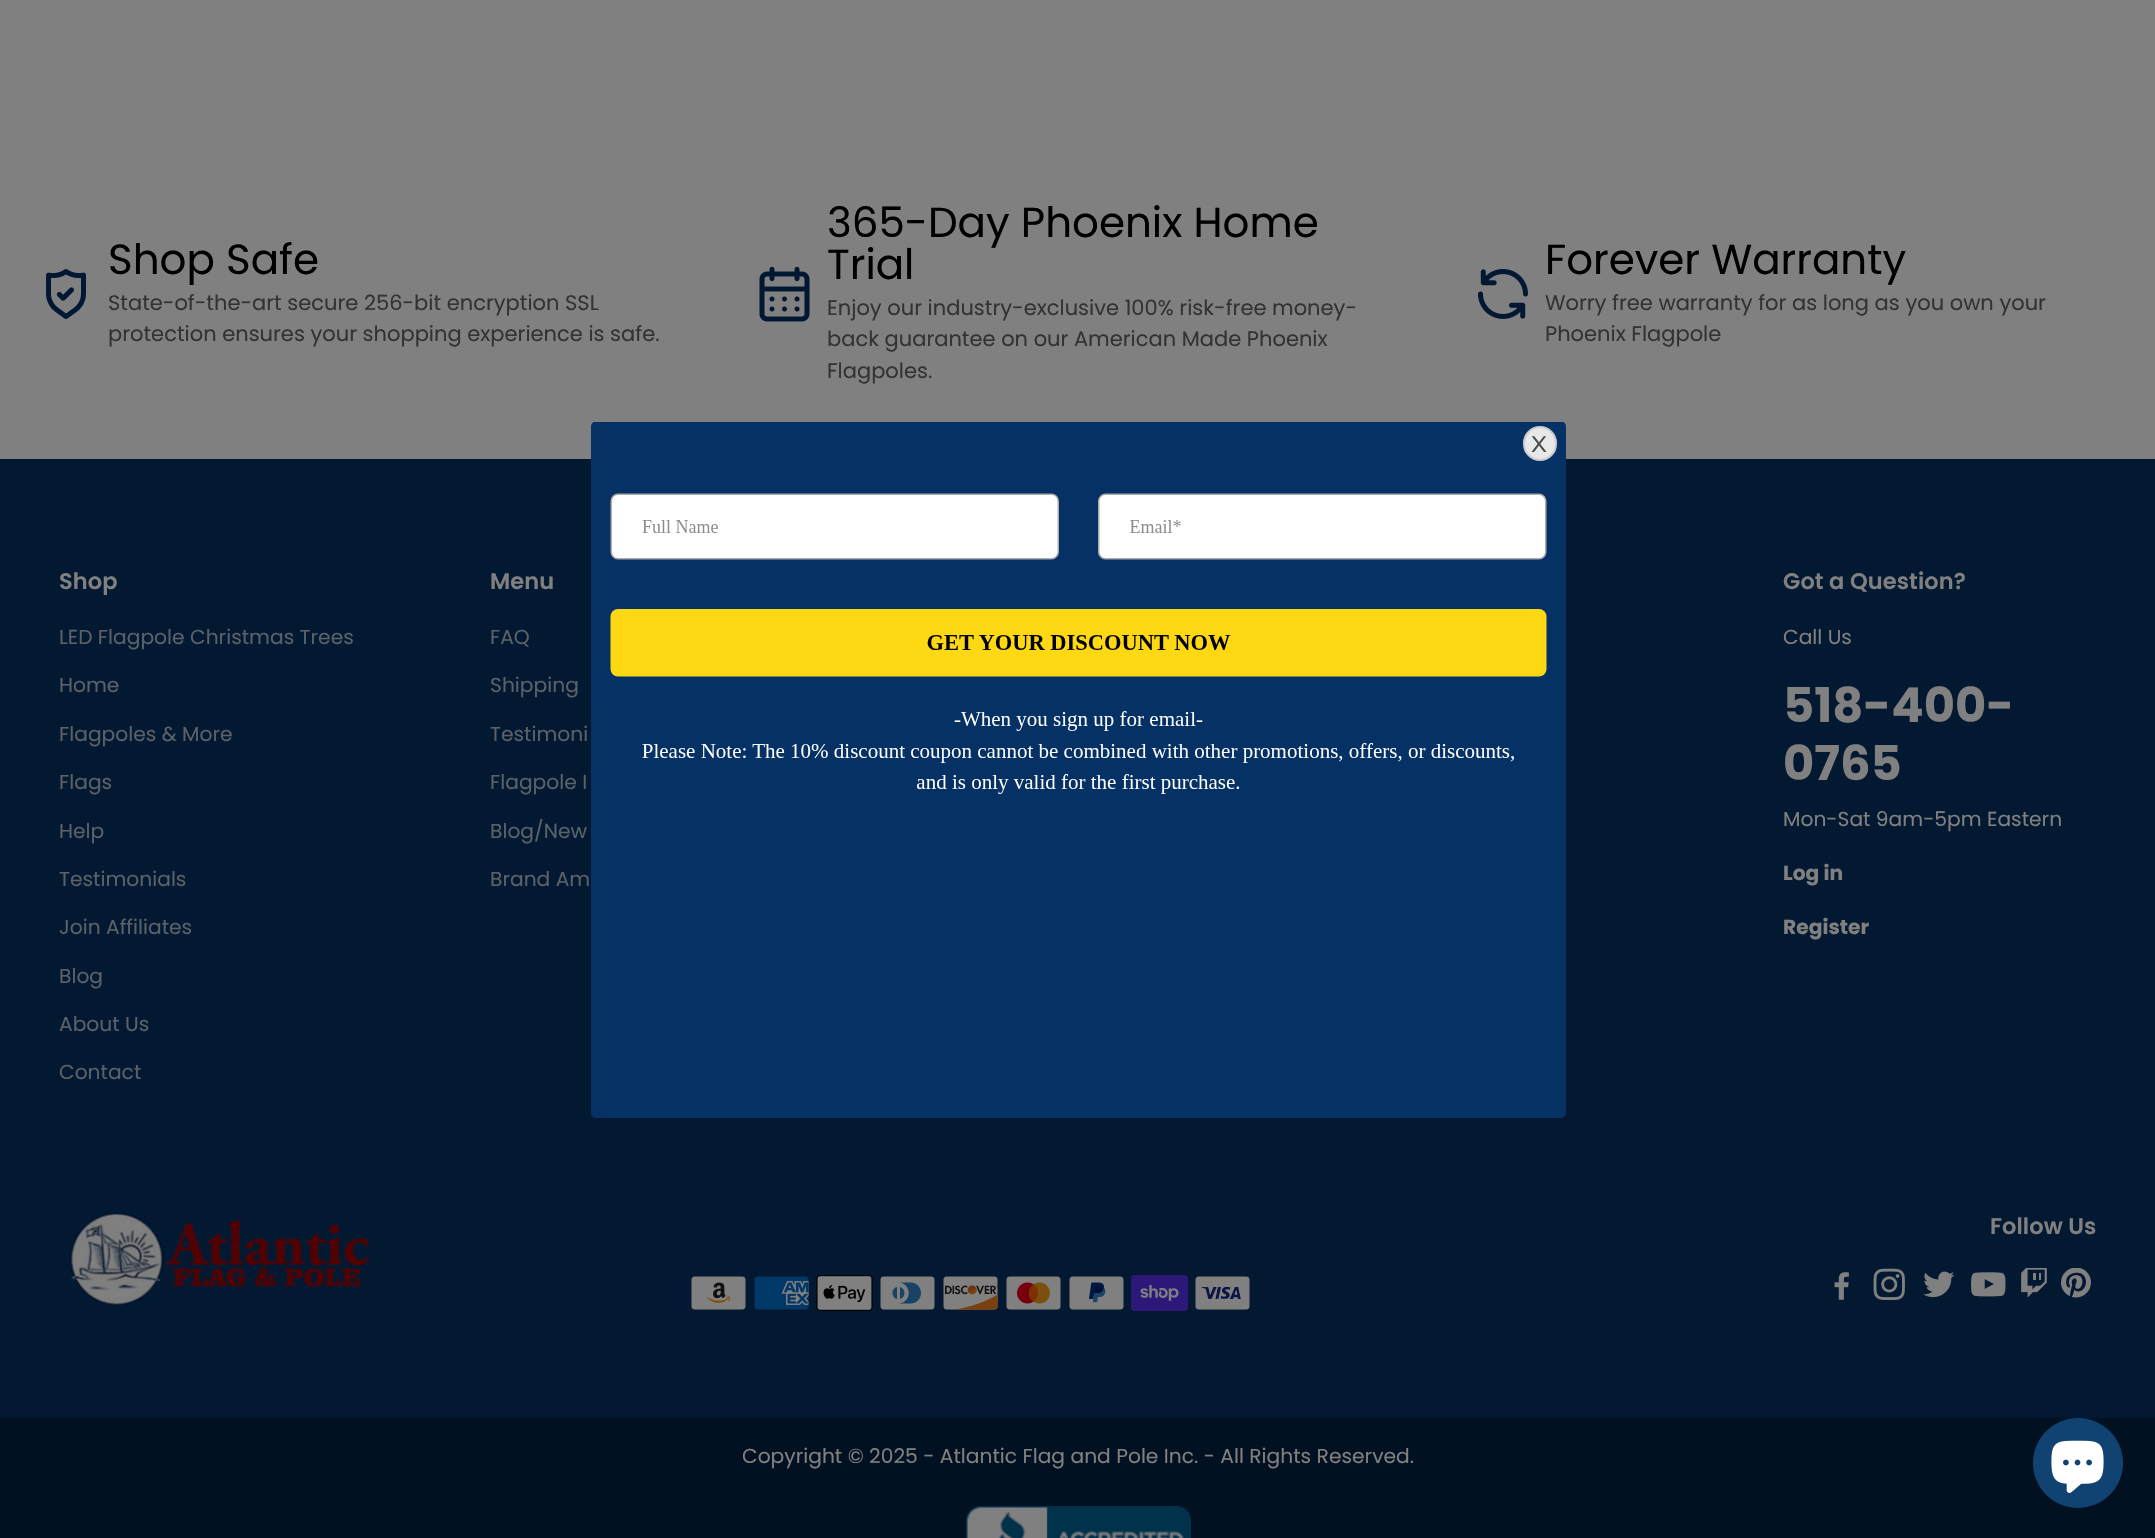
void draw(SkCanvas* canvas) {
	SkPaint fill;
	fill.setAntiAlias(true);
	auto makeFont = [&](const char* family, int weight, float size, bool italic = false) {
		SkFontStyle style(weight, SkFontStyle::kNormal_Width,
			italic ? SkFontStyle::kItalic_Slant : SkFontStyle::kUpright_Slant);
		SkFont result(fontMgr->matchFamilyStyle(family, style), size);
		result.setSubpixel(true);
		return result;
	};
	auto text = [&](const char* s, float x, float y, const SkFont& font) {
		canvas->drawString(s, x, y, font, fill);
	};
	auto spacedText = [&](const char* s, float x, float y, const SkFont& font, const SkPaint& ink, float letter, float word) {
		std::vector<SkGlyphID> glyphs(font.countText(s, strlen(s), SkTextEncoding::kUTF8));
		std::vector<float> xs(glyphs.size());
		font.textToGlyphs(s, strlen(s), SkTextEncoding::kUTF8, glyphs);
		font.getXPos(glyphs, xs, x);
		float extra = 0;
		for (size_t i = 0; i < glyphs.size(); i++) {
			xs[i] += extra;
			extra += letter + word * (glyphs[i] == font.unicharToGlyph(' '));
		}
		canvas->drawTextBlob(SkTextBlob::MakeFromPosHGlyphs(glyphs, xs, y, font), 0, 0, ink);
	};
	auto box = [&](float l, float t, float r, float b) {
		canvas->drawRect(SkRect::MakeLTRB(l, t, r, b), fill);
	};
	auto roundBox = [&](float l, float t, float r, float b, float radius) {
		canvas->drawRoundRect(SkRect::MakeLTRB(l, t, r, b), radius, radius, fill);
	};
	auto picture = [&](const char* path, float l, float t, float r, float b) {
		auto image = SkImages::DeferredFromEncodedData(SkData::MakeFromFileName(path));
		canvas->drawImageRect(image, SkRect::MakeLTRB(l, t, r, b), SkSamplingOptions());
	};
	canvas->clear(0xFF808080);
	picture("image0.png", 46, 269, 86, 319);
	picture("image1.png", 759, 266, 810, 322);
	picture("image2.png", 1478, 269, 1528, 319);
	fill.setColor(0xFF031932);
	box(0, 459, 2155, 1418);
	picture("image3.png", 68, 1211, 370, 1307);
	picture("image4.png", 1834, 1272, 1849, 1300);
	picture("image5.png", 1873, 1268, 1905, 1300);
	picture("image6.png", 1923, 1271, 1955, 1298);
	picture("image7.png", 1971, 1272, 2006, 1297);
	picture("image8.png", 2021, 1268, 2047, 1298);
	picture("image9.png", 2061, 1268, 2091, 1298);
	picture("image10.png", 690, 1275, 747, 1311);
	picture("image11.png", 753, 1275, 810, 1311);
	picture("image12.png", 816, 1275, 873, 1311);
	picture("image13.png", 879, 1275, 936, 1311);
	picture("image14.png", 942, 1275, 999, 1311);
	picture("image15.png", 1005, 1275, 1062, 1311);
	picture("image16.png", 1068, 1275, 1125, 1311);
	picture("image17.png", 1131, 1275, 1188, 1311);
	picture("image18.png", 1194, 1275, 1251, 1311);
	fill.setColor(0xFF021122);
	box(0, 1418, 2155, 1538);
	picture("image19.png", 966, 1506, 1191, 1538);
	fill.setColor(0xFF053164);
	roundBox(591, 422, 1566, 1118, 5);
	picture("image20.png", 591, 422, 1566, 794);
	fill.setColor(0xFFE8E8E8);
	canvas->drawRoundRect(SkRect::MakeLTRB(1524, 427, 1556, 460), 16, 16, fill);
	fill.setStyle(SkPaint::kStroke_Style);
	fill.setStrokeWidth(2);
	fill.setColor(0xFFCCCCCC);
	canvas->drawRoundRect(SkRect::MakeLTRB(1524, 427, 1556, 460), 16, 16, fill);
	fill.setStyle(SkPaint::kFill_Style);
	fill.setColor(0xFF104372);
	canvas->drawCircle(2078, 1463, 45, fill);
	picture("image21.png", 2051, 1440, 2104, 1493);
	auto font1 = makeFont("Poppins", 400, 42);
	fill.setColor(0xFF000000);
	text("Shop Safe", 108, 274, font1);
	auto font2 = makeFont("Poppins", 400, 21);
	fill.setColor(0xFF343232);
	text("State-of-the-art secure 256-bit encryption SSL", 108, 310, font2);
	text("protection ensures your shopping experience is safe.", 108, 341, font2);
	fill.setColor(0xFF000000);
	text("365-Day Phoenix Home", 827, 237, font1);
	text("Trial", 827, 279, font1);
	fill.setColor(0xFF343232);
	text("Enjoy our industry-exclusive 100% risk-free money-", 827, 315, font2);
	text("back guarantee on our American Made Phoenix", 827, 346, font2);
	text("Flagpoles.", 827, 378, font2);
	fill.setColor(0xFF000000);
	text("Forever Warranty", 1545, 274, font1);
	fill.setColor(0xFF343232);
	text("Worry free warranty for as long as you own your", 1545, 310, font2);
	text("Phoenix Flagpole", 1545, 341, font2);
	auto font3 = makeFont("Poppins", 600, 22.5f);
	fill.setColor(0xFF808080);
	spacedText("Shop", 59, 589, font3, fill, 0.1f, 0);
	auto font4 = makeFont("Poppins", 400, 20.25f);
	fill.setColor(0xFF5A6169);
	text("LED Flagpole Christmas Trees", 59, 644, font4);
	text("Home", 59, 692, font4);
	text("Flagpoles & More", 59, 741, font4);
	text("Flags", 59, 789, font4);
	text("Help", 59, 838, font4);
	text("Testimonials", 59, 886, font4);
	text("Join Affiliates", 59, 934, font4);
	text("Blog", 59, 983, font4);
	text("About Us", 59, 1031, font4);
	text("Contact", 59, 1079, font4);
	fill.setColor(0xFF808080);
	spacedText("Menu", 490, 589, font3, fill, 0.1f, 0);
	fill.setColor(0xFF5A6169);
	text("FAQ", 490, 644, font4);
	text("Shipping", 490, 692, font4);
	text("Testimoni", 490, 741, font4);
	text("Flagpole I", 490, 789, font4);
	text("Blog/New", 490, 838, font4);
	text("Brand Am", 490, 886, font4);
	fill.setColor(0xFF808080);
	spacedText("Got a Question?", 1783, 589, font3, fill, 0.1f, 0);
	text("Call Us", 1783, 644, font4);
	auto font5 = makeFont("Poppins", 700, 48);
	text("518-400-", 1783, 722, font5);
	text("0765", 1783, 780, font5);
	text("Mon-Sat 9am-5pm Eastern", 1783, 826, font4);
	auto font6 = makeFont("Poppins", 700, 20.25f);
	text("Log in", 1783, 880, font6);
	text("Register", 1783, 934, font6);
	spacedText("Follow Us", 1990, 1234, font3, fill, 0.1f, 0);
	text("Copyright © 2025 - Atlantic Flag and Pole Inc. - All Rights Reserved.", 742, 1463, font4);
	auto font7 = makeFont("Montserrat", 400, 30);
	fill.setColor(0xFF4A4A4A);
	text("x", 1531, 452, font7);
}
